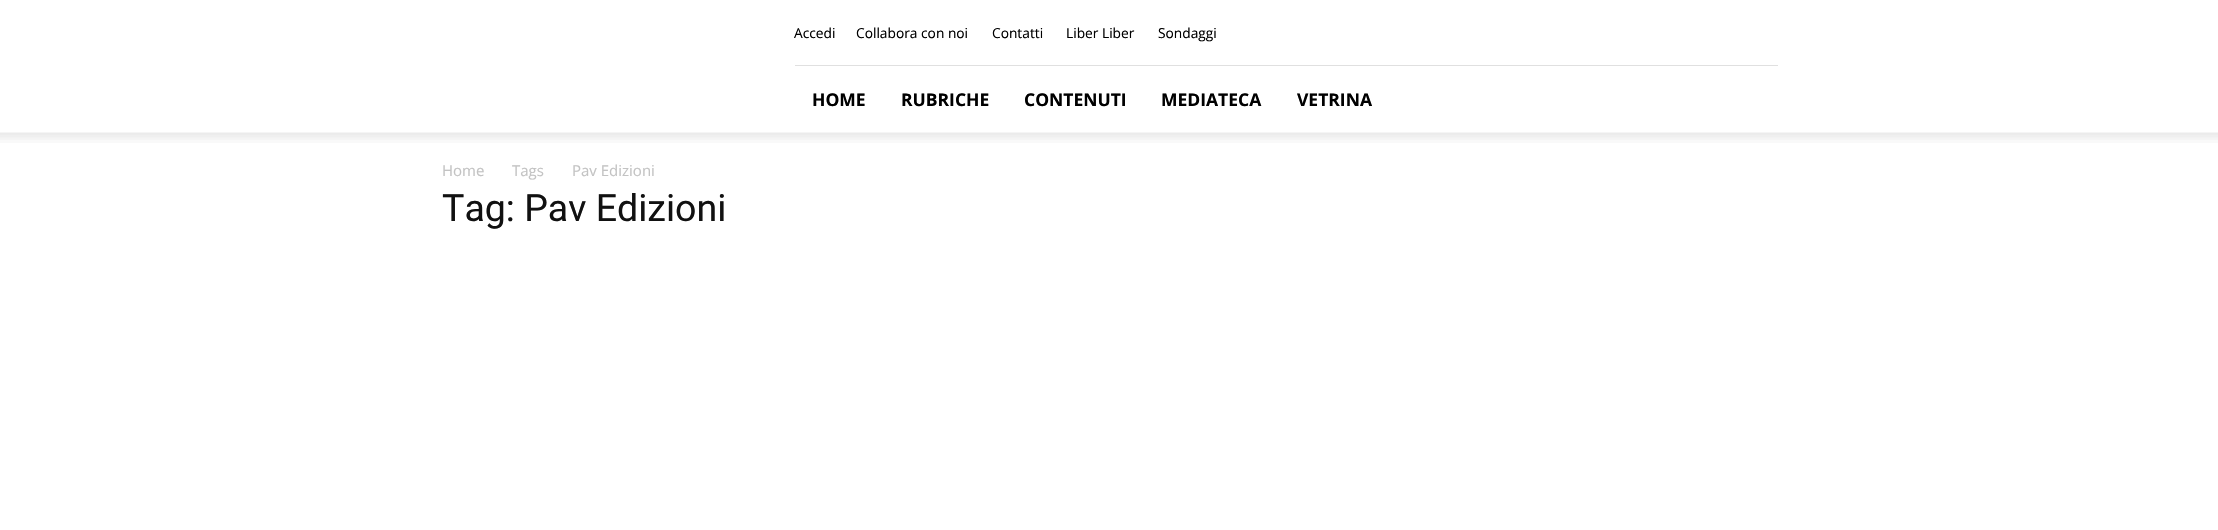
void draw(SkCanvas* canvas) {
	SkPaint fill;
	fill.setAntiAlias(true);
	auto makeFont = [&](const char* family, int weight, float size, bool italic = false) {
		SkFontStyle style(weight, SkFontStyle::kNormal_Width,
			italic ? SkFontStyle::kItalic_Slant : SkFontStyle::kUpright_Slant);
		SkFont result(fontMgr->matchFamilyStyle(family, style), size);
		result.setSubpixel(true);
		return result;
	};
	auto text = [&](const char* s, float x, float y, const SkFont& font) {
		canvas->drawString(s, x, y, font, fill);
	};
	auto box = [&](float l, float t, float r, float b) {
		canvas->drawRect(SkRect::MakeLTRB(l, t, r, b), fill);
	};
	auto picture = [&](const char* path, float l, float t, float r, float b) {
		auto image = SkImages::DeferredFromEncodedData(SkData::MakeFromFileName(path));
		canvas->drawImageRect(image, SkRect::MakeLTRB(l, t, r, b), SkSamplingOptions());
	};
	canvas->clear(0xFFFFFFFF);
	fill.setColor(0xFFE0E0E0);
	box(795, 65, 1778, 66);
	picture("image0.png", 0, 132, 2218, 143);
	auto font1 = makeFont("Open Sans", 400, 13.75f);
	fill.setColor(0xFF000000);
	text("Accedi", 794, 38, font1);
	text("Collabora con noi", 856, 38, font1);
	text("Contatti", 992, 38, font1);
	text("Liber Liber", 1066, 38, font1);
	text("Sondaggi", 1158, 38, font1);
	auto font2 = makeFont("Open Sans", 700, 17.5f);
	text("HOME", 812, 106, font2);
	text("RUBRICHE", 901, 106, font2);
	text("CONTENUTI", 1024, 106, font2);
	text("MEDIATECA", 1161, 106, font2);
	text("VETRINA", 1297, 106, font2);
	auto font3 = makeFont("Open Sans", 400, 15);
	fill.setColor(0xFFC3C3C3);
	text("Home", 442, 176, font3);
	text("Tags", 512, 176, font3);
	text("Pav Edizioni", 572, 176, font3);
	auto font4 = makeFont("Roboto", 400, 37.5f);
	fill.setColor(0xFF111111);
	text("Tag: Pav Edizioni", 442, 221, font4);
}
